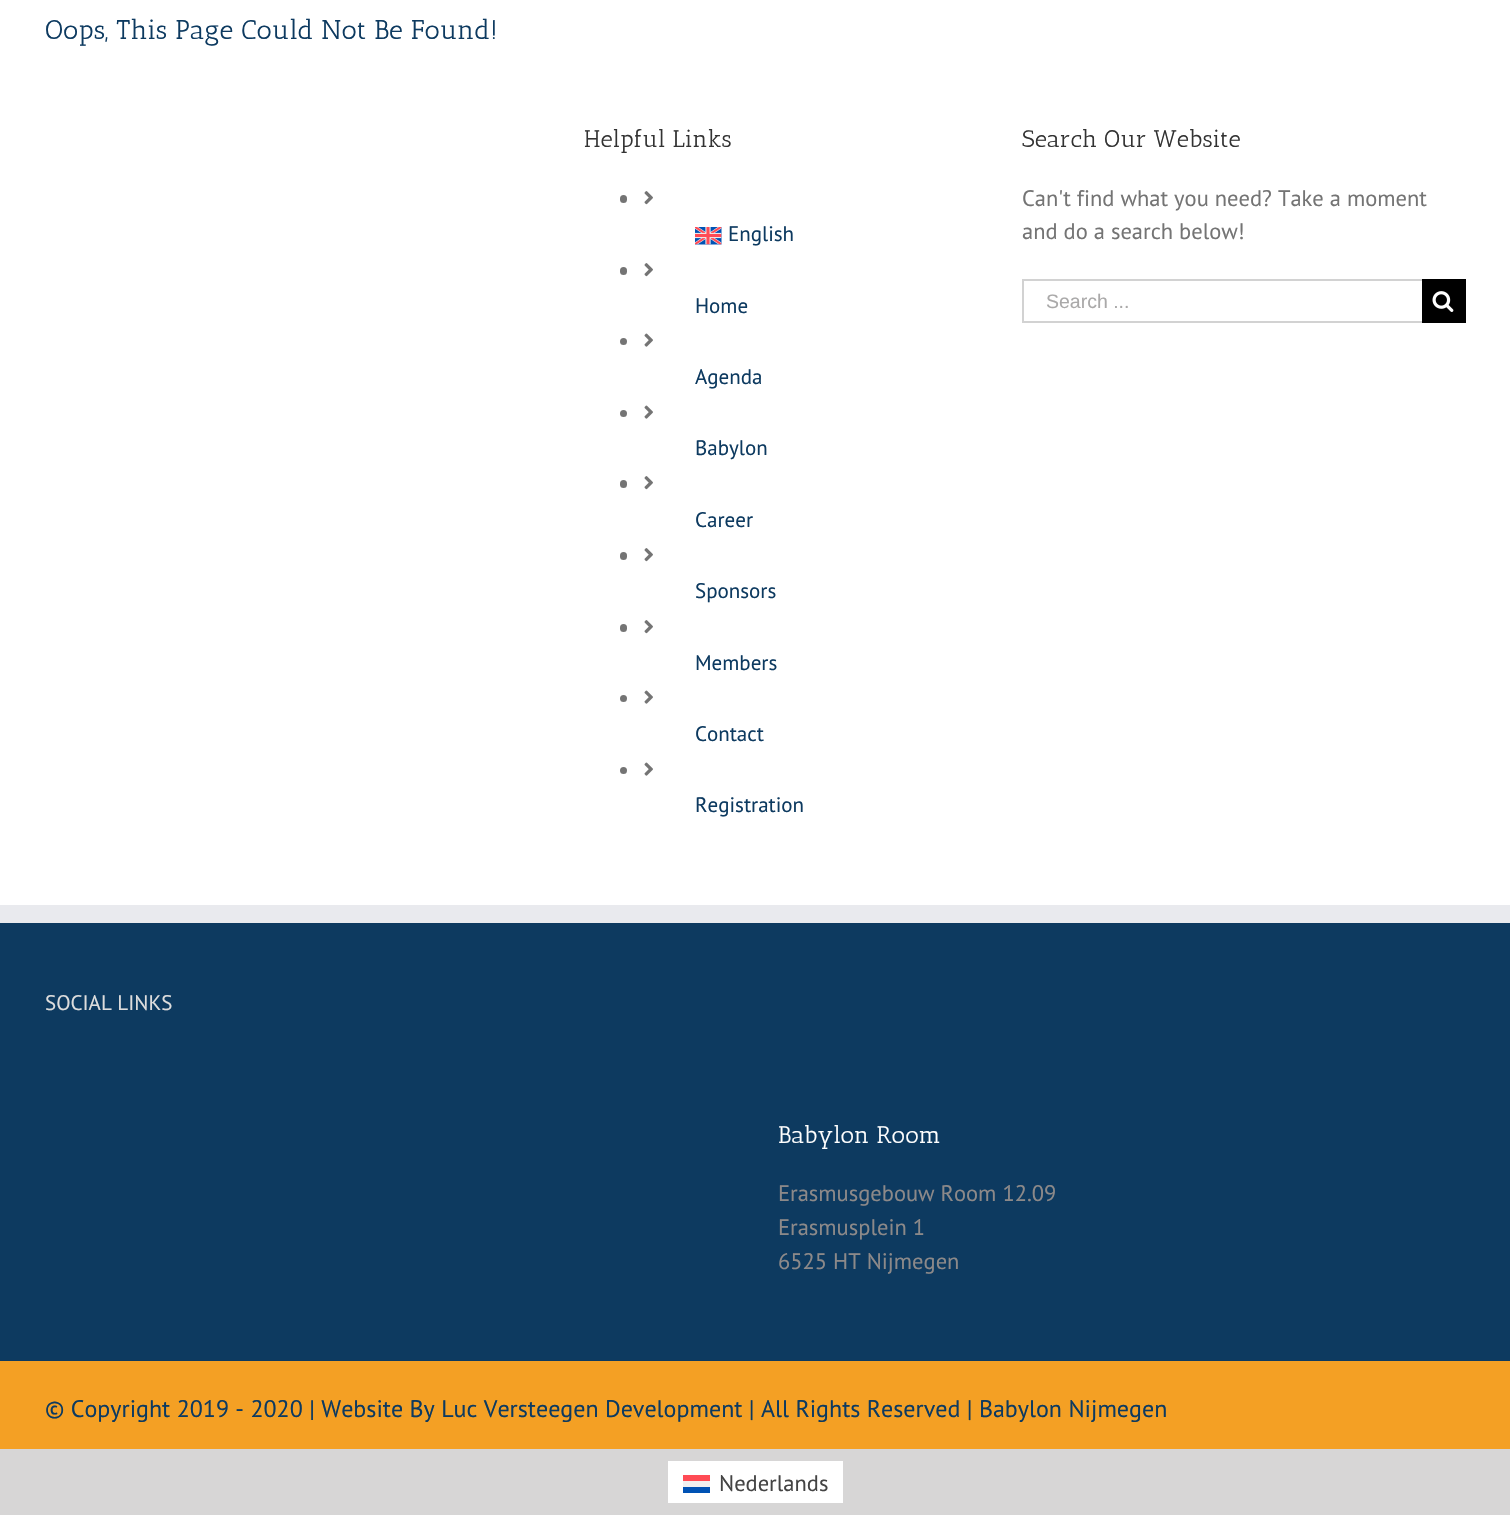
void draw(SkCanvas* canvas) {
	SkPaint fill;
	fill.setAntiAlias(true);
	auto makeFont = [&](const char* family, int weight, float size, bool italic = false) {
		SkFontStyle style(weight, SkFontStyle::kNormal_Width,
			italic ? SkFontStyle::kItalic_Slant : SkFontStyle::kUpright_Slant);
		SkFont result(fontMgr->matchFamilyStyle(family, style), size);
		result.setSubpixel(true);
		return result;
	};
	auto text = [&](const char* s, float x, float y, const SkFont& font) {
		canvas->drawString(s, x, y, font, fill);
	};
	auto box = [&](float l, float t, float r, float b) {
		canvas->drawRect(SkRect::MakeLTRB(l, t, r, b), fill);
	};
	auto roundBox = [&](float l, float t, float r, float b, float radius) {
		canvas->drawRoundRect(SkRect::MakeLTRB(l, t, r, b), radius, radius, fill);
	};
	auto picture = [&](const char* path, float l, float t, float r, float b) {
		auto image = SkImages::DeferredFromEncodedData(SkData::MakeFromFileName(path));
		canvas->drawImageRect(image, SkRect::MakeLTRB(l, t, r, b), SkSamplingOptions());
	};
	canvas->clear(0xFFD7D6D6);
	fill.setColor(0xFFFFFFFF);
	box(0, 0, 1510, 905);
	fill.setColor(0xFF747474);
	roundBox(620, 195, 627, 203, 3.5f);
	picture("image0.png", 644, 191, 653, 205);
	picture("image1.png", 695, 227, 722, 245);
	roundBox(620, 267, 627, 275, 3.5f);
	picture("image0.png", 644, 263, 653, 277);
	canvas->drawCircle(623.5f, 341.5f, 3.5f, fill);
	picture("image2.png", 644, 333, 653, 347);
	canvas->drawCircle(623.5f, 413.5f, 3.5f, fill);
	picture("image2.png", 644, 405, 653, 419);
	roundBox(620, 480, 627, 488, 3.5f);
	picture("image0.png", 644, 476, 653, 490);
	roundBox(620, 552, 627, 560, 3.5f);
	picture("image0.png", 644, 548, 653, 562);
	roundBox(620, 624, 627, 632, 3.5f);
	picture("image0.png", 644, 620, 653, 634);
	canvas->drawCircle(623.5f, 698.5f, 3.5f, fill);
	picture("image2.png", 644, 690, 653, 704);
	canvas->drawCircle(623.5f, 770.5f, 3.5f, fill);
	picture("image2.png", 644, 762, 653, 776);
	fill.setColor(0xFFD2D2D2);
	box(1022, 279, 1422, 281);
	box(1022, 321, 1422, 323);
	box(1022, 279, 1024, 323);
	fill.setColor(0xFF000000);
	box(1422, 279, 1466, 323);
	picture("image3.png", 1432, 291, 1454, 312);
	fill.setColor(0xFF0D3A60);
	box(0, 923, 1510, 1361);
	fill.setColor(0xFFE9EAEE);
	box(0, 905, 1510, 923);
	fill.setColor(0xFFF4A024);
	box(0, 1361, 1510, 1449);
	fill.setColor(0xFFFFFFFF);
	box(668, 1461, 843, 1503);
	fill.setColor(0xFFFF4B55);
	box(683, 1475, 710, 1481);
	fill.setColor(0xFFF0F0F0);
	box(683, 1481, 710, 1487);
	fill.setColor(0xFF0052B4);
	box(683, 1487, 710, 1493);
	auto font1 = makeFont("Antic Slab", 400, 27);
	fill.setColor(0xFF0D3A60);
	text("Oops, This Page Could Not Be Found!", 45, 39, font1);
	auto font2 = makeFont("Antic Slab", 400, 24);
	fill.setColor(0xFF333333);
	text("Helpful Links", 584, 147, font2);
	auto font3 = makeFont("PT Sans", 400, 21);
	fill.setColor(0xFF0D3A60);
	text("English", 728, 241, font3);
	text("Home", 695, 313, font3);
	text("Agenda", 695, 384, font3);
	text("Babylon", 695, 455, font3);
	text("Career", 695, 527, font3);
	text("Sponsors", 695, 598, font3);
	text("Members", 695, 670, font3);
	text("Contact", 695, 741, font3);
	text("Registration", 695, 812, font3);
	fill.setColor(0xFF333333);
	text("Search Our Website", 1022, 147, font2);
	auto font4 = makeFont("PT Sans", 400, 22.5f);
	fill.setColor(0xFF747474);
	text("Can't find what you need? Take a moment", 1022, 206, font4);
	text("and do a search below!", 1022, 239, font4);
	auto font5 = makeFont("Liberation Sans", 400, 19.5f);
	fill.setColor(0xFFAAA9A9);
	text("Search ...", 1046, 308, font5);
	fill.setColor(0xFFDDDDDD);
	text("SOCIAL LINKS", 45, 1010, font3);
	fill.setColor(0xFFFFFFFF);
	text("Babylon Room", 778, 1143, font2);
	fill.setColor(0xFF8C8989);
	text("Erasmusgebouw Room 12.09", 778, 1201, font4);
	text("Erasmusplein 1", 778, 1235, font4);
	text("6525 HT Nijmegen", 778, 1269, font4);
	auto font6 = makeFont("PT Sans", 400, 24);
	fill.setColor(0xFF0D3A60);
	text("© Copyright 2019 - 2020 | Website By Luc Versteegen Development | All Rights Reserved | Babylon Nijmegen", 45, 1417, font6);
	fill.setColor(0xFF444444);
	text("Nederlands", 719, 1491, font4);
}
